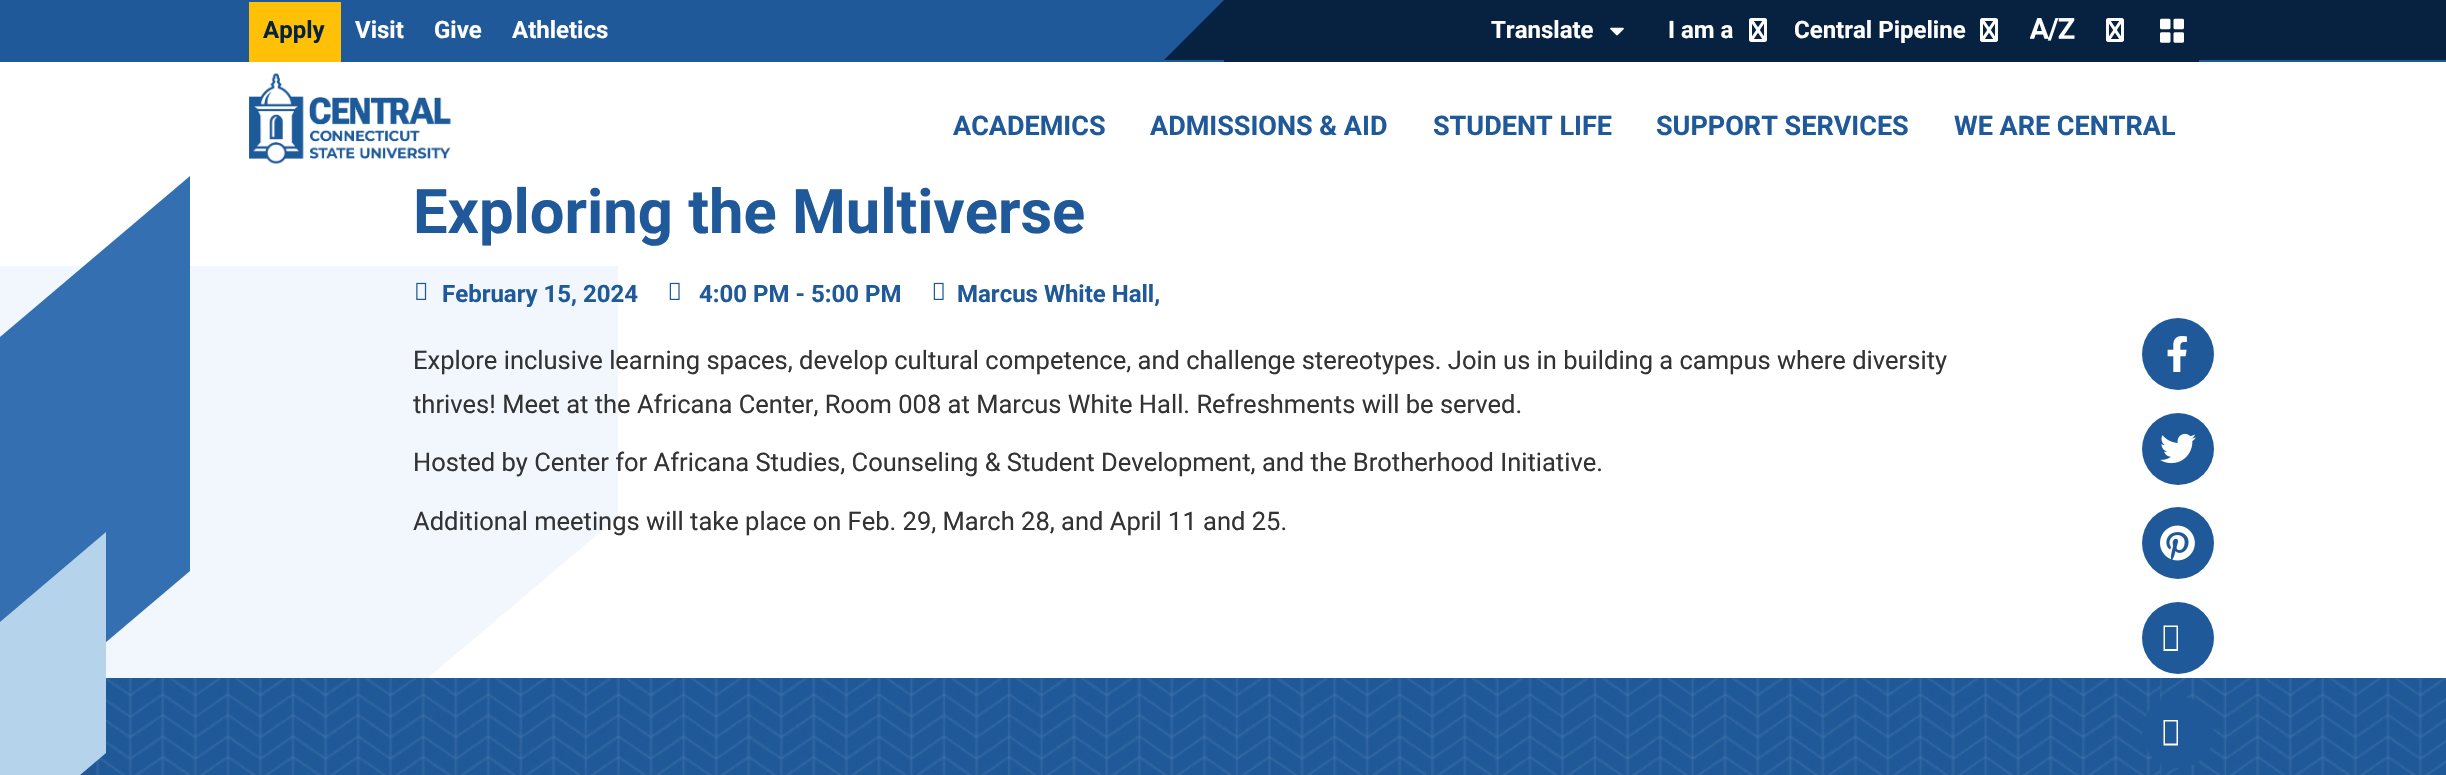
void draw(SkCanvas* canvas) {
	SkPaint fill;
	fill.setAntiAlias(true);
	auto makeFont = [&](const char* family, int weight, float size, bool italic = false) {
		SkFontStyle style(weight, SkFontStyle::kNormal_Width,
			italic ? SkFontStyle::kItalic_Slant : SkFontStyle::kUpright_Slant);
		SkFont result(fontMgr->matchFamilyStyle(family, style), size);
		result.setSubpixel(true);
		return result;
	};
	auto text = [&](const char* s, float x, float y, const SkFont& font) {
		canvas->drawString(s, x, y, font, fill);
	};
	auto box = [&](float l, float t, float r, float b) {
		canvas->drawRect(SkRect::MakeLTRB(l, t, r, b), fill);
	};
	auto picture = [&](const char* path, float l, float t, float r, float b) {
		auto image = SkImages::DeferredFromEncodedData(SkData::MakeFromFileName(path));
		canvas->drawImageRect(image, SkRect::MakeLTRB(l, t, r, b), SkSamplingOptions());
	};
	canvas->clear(0xFFFFFFFF);
	fill.setColor(0xFF205999);
	box(0, 0, 2446, 62);
	fill.setColor(0xFFFFC107);
	box(249, 2, 341, 62);
	fill.setColor(0xFF072141);
	box(1224, 0, 2199, 62);
	canvas->drawPath(SkPathBuilder().moveTo(1224, 60).lineTo(1164, 60).lineTo(1224, 0).close().detach(), fill);
	picture("image0.png", 1610, 27, 1624, 36);
	picture("image1.png", 1749, 18, 1767, 42);
	picture("image1.png", 1980, 18, 1998, 42);
	picture("image2.png", 2030, 18, 2075, 41);
	picture("image1.png", 2106, 18, 2124, 42);
	picture("image3.png", 2160, 18, 2184, 43);
	box(2199, 0, 2446, 60);
	picture("image4.png", 249, 73, 451, 164);
	canvas->save();
	canvas->clipRect(SkRect::MakeLTRB(0, 266, 618, 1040));
	fill.setColor(0xFFF1F7FC);
	canvas->drawPath(SkPathBuilder().moveTo(618, -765).lineTo(0, -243).lineTo(0, 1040).lineTo(618, 517).close().detach(), fill);
	canvas->restore();
	picture("image10.png", 80, 678, 2446, 775);
	fill.setColor(0xFF346FB1);
	canvas->drawPath(SkPathBuilder().moveTo(190, 176).lineTo(0, 337).lineTo(0, 732).lineTo(190, 571).close().detach(), fill);
	fill.setColor(0xFFB6D3EC);
	canvas->drawPath(SkPathBuilder().moveTo(106, 532).lineTo(0, 622).lineTo(0, 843).lineTo(106, 753).close().detach(), fill);
	picture("image5.png", 416, 282, 427, 300);
	picture("image6.png", 669, 282, 680, 300);
	picture("image6.png", 933, 282, 944, 300);
	fill.setColor(0xFF205999);
	canvas->drawCircle(2178, 354, 36, fill);
	picture("image7.png", 2167, 336, 2187, 372);
	canvas->drawCircle(2178, 449, 36, fill);
	picture("image8.png", 2160, 433, 2196, 464);
	canvas->drawCircle(2178, 543, 36, fill);
	picture("image9.png", 2160, 525, 2195, 561);
	canvas->drawCircle(2178, 638, 36, fill);
	fill.setColor(0xFFFFFFFF);
	canvas->drawPath(SkPathBuilder().moveTo(2163.5f, 651).lineTo(2163.5f, 625.5f).lineTo(2178, 625.5f).lineTo(2178, 651).close().moveTo(2165, 649).lineTo(2176.5f, 649).lineTo(2176.5f, 627).lineTo(2165, 627).close().detach(), fill);
	fill.setColor(0xFF205999);
	canvas->drawCircle(2178, 732, 36, fill);
	fill.setColor(0xFFFFFFFF);
	canvas->drawPath(SkPathBuilder().moveTo(2163.5f, 745.5f).lineTo(2163.5f, 720).lineTo(2178, 720).lineTo(2178, 745.5f).close().moveTo(2165, 743.5f).lineTo(2176.5f, 743.5f).lineTo(2176.5f, 721.5f).lineTo(2165, 721.5f).close().detach(), fill);
	auto font1 = makeFont("Roboto", 700, 24);
	fill.setColor(0xFF072141);
	text("Apply", 263, 38, font1);
	fill.setColor(0xFFFFFFFF);
	text("Visit", 355, 38, font1);
	text("Give", 434, 38, font1);
	text("Athletics", 512, 38, font1);
	text("Translate", 1491, 38, font1);
	text("I am a", 1668, 38, font1);
	text("Central Pipeline", 1794, 38, font1);
	auto font2 = makeFont("Roboto", 700, 27);
	fill.setColor(0xFF205999);
	text("ACADEMICS", 953, 135, font2);
	text("ADMISSIONS & AID", 1150, 135, font2);
	text("STUDENT LIFE", 1433, 135, font2);
	text("SUPPORT SERVICES", 1656, 135, font2);
	text("WE ARE CENTRAL", 1954, 135, font2);
	auto font3 = makeFont("Roboto", 700, 61.5f);
	text("Exploring the Multiverse", 413, 233, font3);
	text("February 15, 2024", 442, 302, font1);
	text("4:00 PM - 5:00 PM", 699, 302, font1);
	text("Marcus White Hall,", 957, 302, font1);
	auto font4 = makeFont("Roboto", 400, 25.5f);
	fill.setColor(0xFF333333);
	text("Explore inclusive learning spaces, develop cultural competence, and challenge stereotypes. Join us in building a campus where diversity", 413, 369, font4);
	text("thrives! Meet at the Africana Center, Room 008 at Marcus White Hall. Refreshments will be served.", 413, 413, font4);
	text("Hosted by Center for Africana Studies, Counseling & Student Development, and the Brotherhood Initiative.", 413, 471, font4);
	text("Additional meetings will take place on Feb. 29, March 28, and April 11 and 25.", 413, 530, font4);
}
